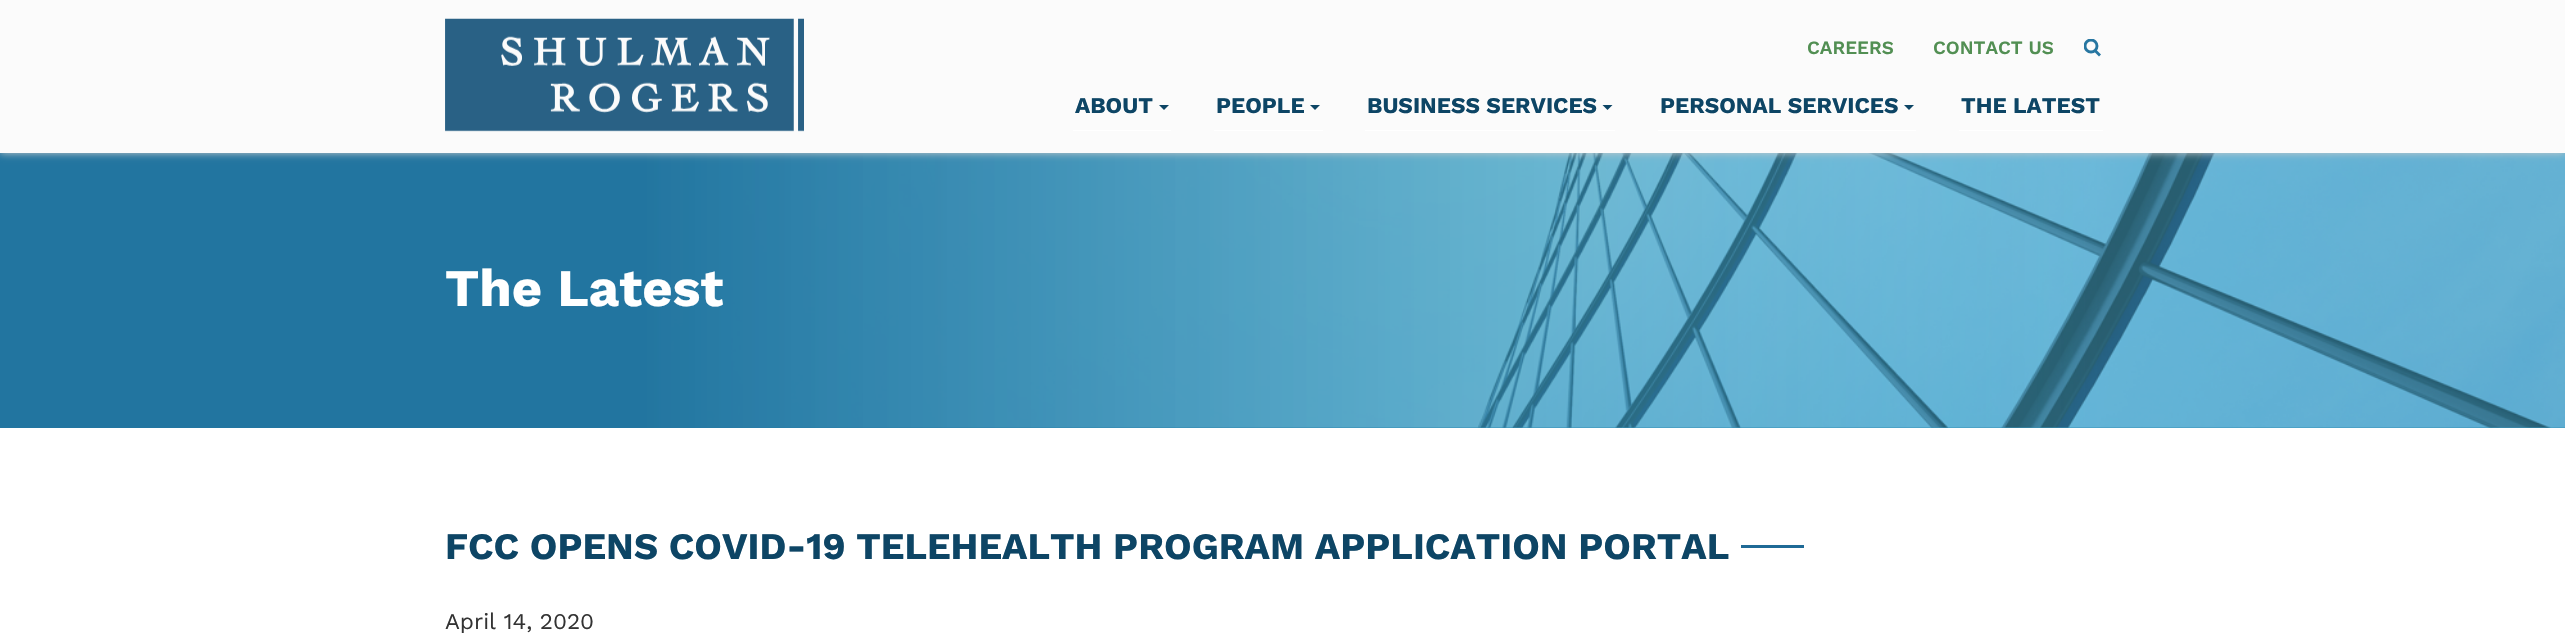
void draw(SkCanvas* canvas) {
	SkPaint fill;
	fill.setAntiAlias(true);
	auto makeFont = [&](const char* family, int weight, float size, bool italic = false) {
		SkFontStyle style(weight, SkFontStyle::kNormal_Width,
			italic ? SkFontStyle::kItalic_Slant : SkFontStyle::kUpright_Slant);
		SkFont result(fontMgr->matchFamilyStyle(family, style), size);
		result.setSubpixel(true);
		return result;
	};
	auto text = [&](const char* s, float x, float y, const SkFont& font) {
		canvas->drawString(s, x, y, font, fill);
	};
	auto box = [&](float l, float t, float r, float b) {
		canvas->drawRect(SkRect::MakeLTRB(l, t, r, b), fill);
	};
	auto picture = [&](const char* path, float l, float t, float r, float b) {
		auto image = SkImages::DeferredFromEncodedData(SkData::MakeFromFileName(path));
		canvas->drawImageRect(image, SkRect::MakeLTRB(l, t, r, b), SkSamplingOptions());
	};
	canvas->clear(0xFFFFFFFF);
	fill.setColor(0xFF2776A1);
	box(659, 427, 2565, 428);
	picture("image1.png", 659, 153, 2565, 428);
	{
		const SkColor colors[] = {0x8547ADCE, 0xFF2275A0};
		const float stops[] = {0.18f, 0.75f};
		const SkPoint ends[] = {{2565, 289}, {0, 289}};
		fill.setShader(SkGradientShader::MakeLinear(ends, colors, stops, 2, SkTileMode::kClamp));
		fill.setAlpha(255);
	}
	box(0, 153, 2565, 428);
	fill.setShader(nullptr);
	fill.setColor(0xFFCCCCCC);
	fill.setMaskFilter(SkMaskFilter::MakeBlur(kNormal_SkBlurStyle, 4));
	canvas->drawRect(SkRect::MakeLTRB(0, 0, 2565, 153), fill);
	fill.setMaskFilter(nullptr);
	fill.setColor(0xFFFBFBFB);
	box(0, 0, 2565, 153);
	picture("image0.png", 445, 18, 804, 132);
	fill.setStyle(SkPaint::kStroke_Style);
	fill.setStrokeWidth(2.9f);
	fill.setColor(0xFF2776A1);
	canvas->drawPath(SkPathBuilder().moveTo(2100, 55.5f).lineTo(2094.5f, 50).detach(), fill);
	canvas->save();
	canvas->clipRect(SkRect::MakeLTRB(2084, 39, 2101, 58));
	canvas->drawCircle(2091, 46, 6, fill);
	canvas->restore();
	fill.setStyle(SkPaint::kFill_Style);
	fill.setColor(0xFFFFFFFF);
	box(1073, 130, 1171, 131);
	fill.setColor(0xFF0D4565);
	canvas->drawPath(SkPathBuilder().moveTo(1159, 105).lineTo(1169, 105).lineTo(1164, 110).close().detach(), fill);
	fill.setColor(0xFFFFFFFF);
	box(1214, 130, 1323, 131);
	fill.setColor(0xFF0D4565);
	canvas->drawPath(SkPathBuilder().moveTo(1310, 105).lineTo(1320, 105).lineTo(1315, 110).close().detach(), fill);
	fill.setColor(0xFFFFFFFF);
	box(1365, 130, 1615, 131);
	fill.setColor(0xFF0D4565);
	canvas->drawPath(SkPathBuilder().moveTo(1602.5f, 105).lineTo(1612.5f, 105).lineTo(1607.5f, 110).close().detach(), fill);
	fill.setColor(0xFFFFFFFF);
	box(1658, 130, 1916, 131);
	fill.setColor(0xFF0D4565);
	canvas->drawPath(SkPathBuilder().moveTo(1904, 105).lineTo(1914, 105).lineTo(1909, 110).close().detach(), fill);
	fill.setColor(0xFFFFFFFF);
	box(1959, 130, 2103, 131);
	fill.setColor(0xFF1F6A96);
	box(1741, 545, 1804, 548);
	auto font1 = makeFont("Work Sans", 600, 18.75f);
	fill.setColor(0xFF528F53);
	text("CAREERS", 1807, 54, font1);
	text("CONTACT US", 1933, 54, font1);
	auto font2 = makeFont("Work Sans", 700, 22.5f);
	fill.setColor(0xFF0D4565);
	text("ABOUT", 1075, 113, font2);
	text("PEOPLE", 1216, 113, font2);
	text("BUSINESS SERVICES", 1367, 113, font2);
	text("PERSONAL SERVICES", 1660, 113, font2);
	text("THE LATEST", 1961, 113, font2);
	auto font3 = makeFont("Work Sans", 700, 52.5f);
	fill.setColor(0xFFFFFFFF);
	text("The Latest", 445, 306, font3);
	auto font4 = makeFont("Work Sans", 700, 37.5f);
	fill.setColor(0xFF0D4565);
	text("FCC OPENS COVID-19 TELEHEALTH PROGRAM APPLICATION PORTAL", 445, 559, font4);
	auto font5 = makeFont("Work Sans", 400, 22.5f);
	fill.setColor(0xFF333333);
	text("April 14, 2020", 445, 629, font5);
}
